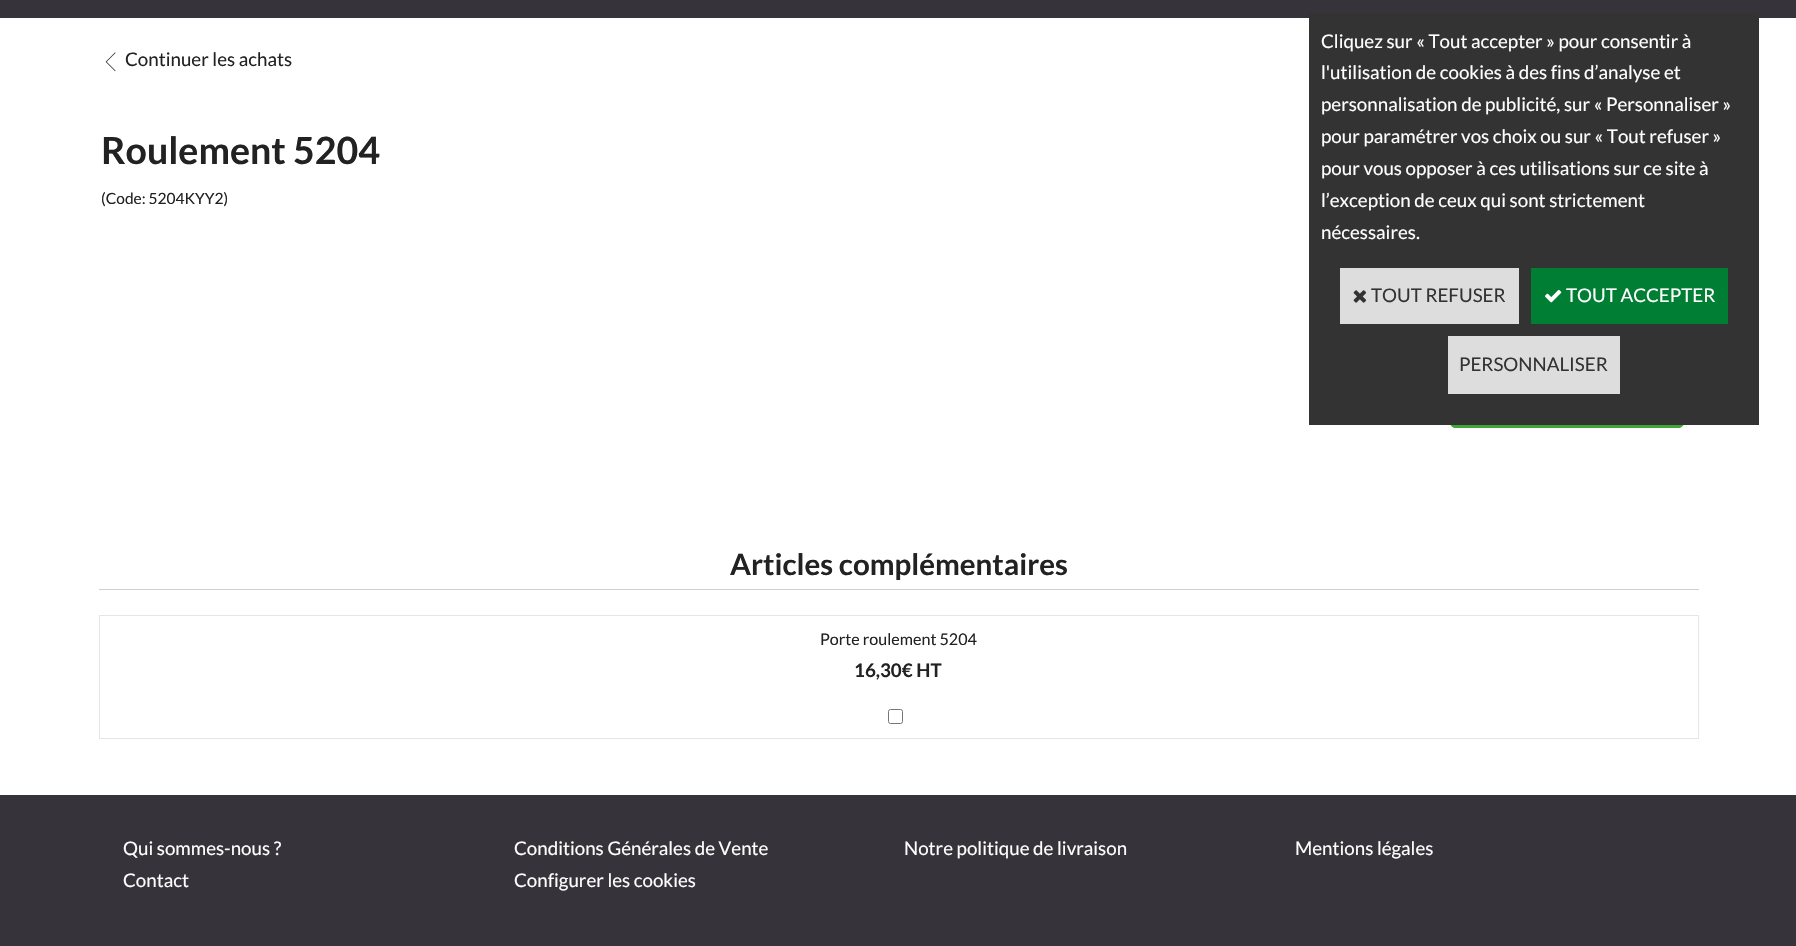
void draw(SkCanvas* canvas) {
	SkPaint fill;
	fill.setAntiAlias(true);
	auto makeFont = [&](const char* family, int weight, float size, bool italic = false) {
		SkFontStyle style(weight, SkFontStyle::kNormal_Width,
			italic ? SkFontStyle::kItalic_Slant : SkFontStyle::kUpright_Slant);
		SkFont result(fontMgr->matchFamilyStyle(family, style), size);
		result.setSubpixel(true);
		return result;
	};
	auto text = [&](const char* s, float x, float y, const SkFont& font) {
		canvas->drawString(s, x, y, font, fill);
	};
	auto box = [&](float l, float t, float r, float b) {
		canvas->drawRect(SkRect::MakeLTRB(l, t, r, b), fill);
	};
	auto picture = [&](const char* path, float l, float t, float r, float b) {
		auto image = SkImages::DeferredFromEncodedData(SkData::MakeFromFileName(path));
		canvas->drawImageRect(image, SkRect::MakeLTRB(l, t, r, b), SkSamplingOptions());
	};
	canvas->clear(0xFFFFFFFF);
	fill.setColor(0xFF36333A);
	box(0, 0, 1796, 18);
	picture("image0.png", 105, 52, 116, 72);
	fill.setColor(0xFF40A636);
	canvas->drawRoundRect(SkRect::MakeLTRB(1450.5f, 378.5f, 1683.5f, 427.5f), 4.5f, 4.5f, fill);
	fill.setStyle(SkPaint::kStroke_Style);
	fill.setStrokeWidth(1);
	canvas->drawRoundRect(SkRect::MakeLTRB(1450.5f, 378.5f, 1683.5f, 427.5f), 4.5f, 4.5f, fill);
	fill.setStyle(SkPaint::kFill_Style);
	fill.setColor(0xFFD0D0D0);
	box(99, 589, 1699, 590);
	fill.setStyle(SkPaint::kStroke_Style);
	fill.setColor(0xFFE6E6E6);
	canvas->drawRect(SkRect::MakeLTRB(99.5f, 615.5f, 1698.5f, 738.5f), fill);
	fill.setColor(0xFF767676);
	canvas->drawRoundRect(SkRect::MakeLTRB(888.5f, 709.5f, 902.5f, 723.5f), 2, 2, fill);
	fill.setStyle(SkPaint::kFill_Style);
	fill.setColor(0xFF333333);
	box(1309, 13, 1759, 425);
	fill.setColor(0xFFDDDDDD);
	box(1340, 268, 1519, 324);
	picture("image1.png", 1353, 290, 1367, 303);
	fill.setColor(0xFF007E33);
	box(1531, 268, 1728, 324);
	picture("image2.png", 1545, 289, 1562, 303);
	fill.setColor(0xFFDDDDDD);
	box(1448, 336, 1620, 394);
	fill.setColor(0xFF36333A);
	box(0, 795, 1796, 946);
	auto font1 = makeFont("Lato", 400, 18.75f);
	fill.setColor(0xFF222222);
	text("Continuer les achats", 125, 66, font1);
	auto font2 = makeFont("Lato", 700, 37.5f);
	text("Roulement 5204", 101, 164, font2);
	auto font3 = makeFont("Lato", 400, 15.5f);
	text("(Code: 5204KYY2)", 101, 204, font3);
	auto font4 = makeFont("Lato", 700, 29.5f);
	text("Articles complémentaires", 730, 575, font4);
	auto font5 = makeFont("Lato", 400, 16.1f);
	text("Porte roulement 5204", 820, 645, font5);
	auto font6 = makeFont("Lato", 700, 18.75f);
	text("16,30€ HT", 854, 677, font6);
	fill.setColor(0xFFFFFFFF);
	text("Cliquez sur « Tout accepter » pour consentir à", 1321, 48, font1);
	text("l'utilisation de cookies à des fins d’analyse et", 1321, 79, font1);
	text("personnalisation de publicité, sur « Personnaliser »", 1321, 111, font1);
	text("pour paramétrer vos choix ou sur « Tout refuser »", 1321, 143, font1);
	text("pour vous opposer à ces utilisations sur ce site à", 1321, 175, font1);
	text("l’exception de ceux qui sont strictement", 1321, 207, font1);
	text("nécessaires.", 1321, 239, font1);
	fill.setColor(0xFF333333);
	text("TOUT REFUSER", 1371, 302, font1);
	fill.setColor(0xFFFFFFFF);
	text("TOUT ACCEPTER", 1566, 302, font1);
	fill.setColor(0xFF333333);
	text("PERSONNALISER", 1459, 371, font1);
	fill.setColor(0xFFFFFFFF);
	text("Qui sommes-nous ?", 123, 855, font1);
	text("Conditions Générales de Vente", 514, 855, font1);
	text("Notre politique de livraison", 904, 855, font1);
	text("Mentions légales", 1295, 855, font1);
	text("Contact", 123, 887, font1);
	text("Configurer les cookies", 514, 887, font1);
}
